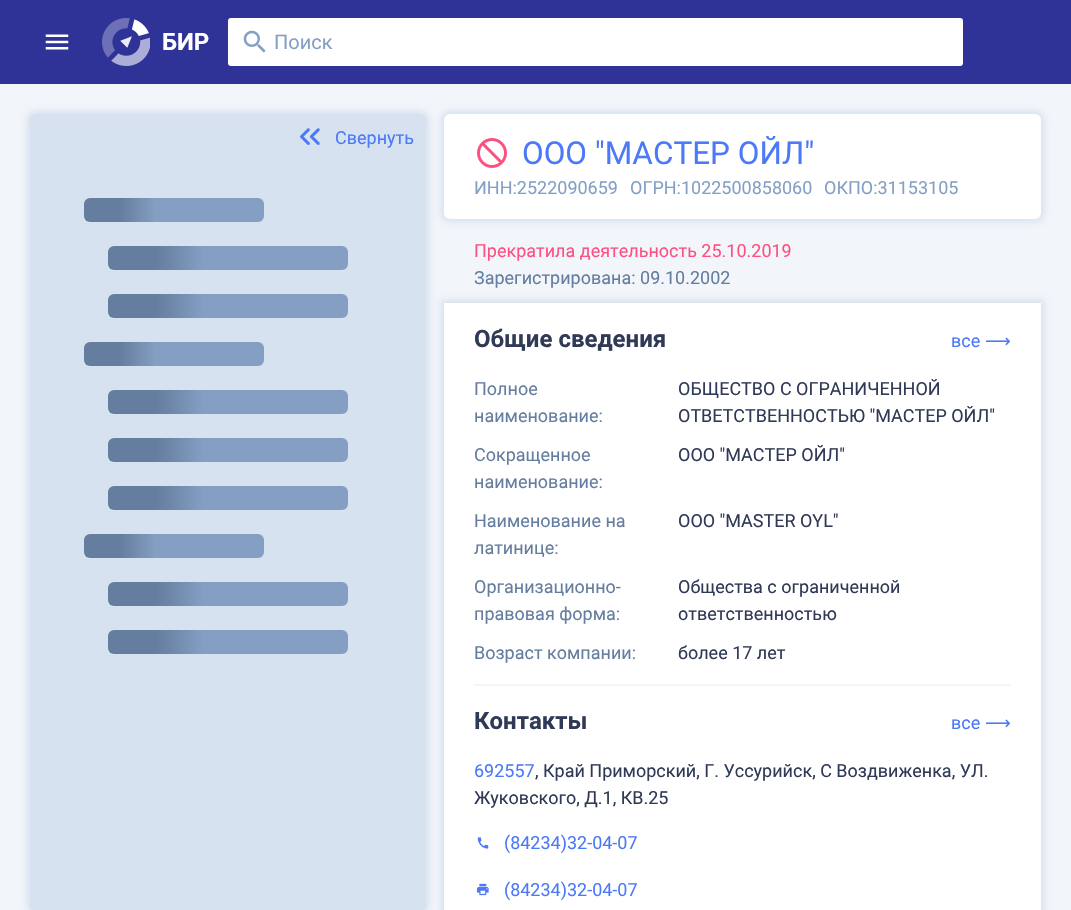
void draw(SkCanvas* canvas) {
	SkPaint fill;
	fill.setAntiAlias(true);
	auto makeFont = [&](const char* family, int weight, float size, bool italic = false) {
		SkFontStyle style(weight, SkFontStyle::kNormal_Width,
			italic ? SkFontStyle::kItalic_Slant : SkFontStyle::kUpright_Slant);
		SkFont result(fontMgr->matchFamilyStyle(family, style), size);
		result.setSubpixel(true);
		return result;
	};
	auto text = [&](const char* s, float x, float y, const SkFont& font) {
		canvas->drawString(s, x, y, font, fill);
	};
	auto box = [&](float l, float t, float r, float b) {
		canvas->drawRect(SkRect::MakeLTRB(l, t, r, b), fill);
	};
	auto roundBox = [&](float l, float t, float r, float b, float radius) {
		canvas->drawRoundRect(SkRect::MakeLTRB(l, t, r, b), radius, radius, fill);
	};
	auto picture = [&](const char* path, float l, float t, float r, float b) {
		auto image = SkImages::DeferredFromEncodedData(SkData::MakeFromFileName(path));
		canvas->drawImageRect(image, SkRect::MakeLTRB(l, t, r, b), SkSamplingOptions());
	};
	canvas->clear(0xFFF2F5F9);
	fill.setColor(0xFF2F3397);
	box(0, 0, 1071, 84);
	picture("image0.png", 45, 34, 69, 50);
	picture("image1.png", 102, 18, 150, 66);
	fill.setColor(0xFFFFFFFF);
	roundBox(228, 18, 963, 66, 3);
	picture("image2.png", 243, 30, 266, 53);
	fill.setColor(0xFFD7E2F0);
	fill.setMaskFilter(SkMaskFilter::MakeBlur(kNormal_SkBlurStyle, 3));
	canvas->drawRoundRect(SkRect::MakeLTRB(27, 111, 429, 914), 9, 9, fill);
	fill.setMaskFilter(nullptr);
	roundBox(30, 114, 426, 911, 6);
	picture("image3.png", 300, 128, 320, 145);
	{
		const SkColor colors[] = {0xFF849FC3, 0xFF657D9E, 0xFF657D9E, 0xFF849FC3, 0xFF849FC3};
		const float stops[] = {0, 0, 0.2f, 0.4f, 1};
		const SkPoint ends[] = {{84, 210}, {264, 210}};
		fill.setShader(SkGradientShader::MakeLinear(ends, colors, stops, 5, SkTileMode::kClamp));
		fill.setAlpha(255);
	}
	roundBox(84, 198, 264, 222, 6);
	{
		const SkColor colors[] = {0xFF849FC3, 0xFF657D9E, 0xFF657D9E, 0xFF849FC3, 0xFF849FC3};
		const float stops[] = {0, 0, 0.2f, 0.4f, 1};
		const SkPoint ends[] = {{108, 258}, {348, 258}};
		fill.setShader(SkGradientShader::MakeLinear(ends, colors, stops, 5, SkTileMode::kClamp));
		fill.setAlpha(255);
	}
	roundBox(108, 246, 348, 270, 6);
	{
		const SkColor colors[] = {0xFF849FC3, 0xFF657D9E, 0xFF657D9E, 0xFF849FC3, 0xFF849FC3};
		const float stops[] = {0, 0, 0.2f, 0.4f, 1};
		const SkPoint ends[] = {{108, 306}, {348, 306}};
		fill.setShader(SkGradientShader::MakeLinear(ends, colors, stops, 5, SkTileMode::kClamp));
		fill.setAlpha(255);
	}
	roundBox(108, 294, 348, 318, 6);
	{
		const SkColor colors[] = {0xFF849FC3, 0xFF657D9E, 0xFF657D9E, 0xFF849FC3, 0xFF849FC3};
		const float stops[] = {0, 0, 0.2f, 0.4f, 1};
		const SkPoint ends[] = {{84, 354}, {264, 354}};
		fill.setShader(SkGradientShader::MakeLinear(ends, colors, stops, 5, SkTileMode::kClamp));
		fill.setAlpha(255);
	}
	roundBox(84, 342, 264, 366, 6);
	{
		const SkColor colors[] = {0xFF849FC3, 0xFF657D9E, 0xFF657D9E, 0xFF849FC3, 0xFF849FC3};
		const float stops[] = {0, 0, 0.2f, 0.4f, 1};
		const SkPoint ends[] = {{108, 402}, {348, 402}};
		fill.setShader(SkGradientShader::MakeLinear(ends, colors, stops, 5, SkTileMode::kClamp));
		fill.setAlpha(255);
	}
	roundBox(108, 390, 348, 414, 6);
	{
		const SkColor colors[] = {0xFF849FC3, 0xFF657D9E, 0xFF657D9E, 0xFF849FC3, 0xFF849FC3};
		const float stops[] = {0, 0, 0.2f, 0.4f, 1};
		const SkPoint ends[] = {{108, 450}, {348, 450}};
		fill.setShader(SkGradientShader::MakeLinear(ends, colors, stops, 5, SkTileMode::kClamp));
		fill.setAlpha(255);
	}
	roundBox(108, 438, 348, 462, 6);
	{
		const SkColor colors[] = {0xFF849FC3, 0xFF657D9E, 0xFF657D9E, 0xFF849FC3, 0xFF849FC3};
		const float stops[] = {0, 0, 0.2f, 0.4f, 1};
		const SkPoint ends[] = {{108, 498}, {348, 498}};
		fill.setShader(SkGradientShader::MakeLinear(ends, colors, stops, 5, SkTileMode::kClamp));
		fill.setAlpha(255);
	}
	roundBox(108, 486, 348, 510, 6);
	{
		const SkColor colors[] = {0xFF849FC3, 0xFF657D9E, 0xFF657D9E, 0xFF849FC3, 0xFF849FC3};
		const float stops[] = {0, 0, 0.2f, 0.4f, 1};
		const SkPoint ends[] = {{84, 546}, {264, 546}};
		fill.setShader(SkGradientShader::MakeLinear(ends, colors, stops, 5, SkTileMode::kClamp));
		fill.setAlpha(255);
	}
	roundBox(84, 534, 264, 558, 6);
	{
		const SkColor colors[] = {0xFF849FC3, 0xFF657D9E, 0xFF657D9E, 0xFF849FC3, 0xFF849FC3};
		const float stops[] = {0, 0, 0.2f, 0.4f, 1};
		const SkPoint ends[] = {{108, 594}, {348, 594}};
		fill.setShader(SkGradientShader::MakeLinear(ends, colors, stops, 5, SkTileMode::kClamp));
		fill.setAlpha(255);
	}
	roundBox(108, 582, 348, 606, 6);
	{
		const SkColor colors[] = {0xFF849FC3, 0xFF657D9E, 0xFF657D9E, 0xFF849FC3, 0xFF849FC3};
		const float stops[] = {0, 0, 0.2f, 0.4f, 1};
		const SkPoint ends[] = {{108, 642}, {348, 642}};
		fill.setShader(SkGradientShader::MakeLinear(ends, colors, stops, 5, SkTileMode::kClamp));
		fill.setAlpha(255);
	}
	roundBox(108, 630, 348, 654, 6);
	fill.setShader(nullptr);
	fill.setColor(0xFFD7E2F0);
	fill.setMaskFilter(SkMaskFilter::MakeBlur(kNormal_SkBlurStyle, 3));
	canvas->drawRoundRect(SkRect::MakeLTRB(441, 111, 1044, 222), 9, 9, fill);
	fill.setMaskFilter(nullptr);
	fill.setColor(0xFFFFFFFF);
	roundBox(444, 114, 1041, 219, 6);
	picture("image4.png", 477, 138, 507, 168);
	fill.setColor(0xFFD7E2F0);
	fill.setMaskFilter(SkMaskFilter::MakeBlur(kNormal_SkBlurStyle, 3));
	canvas->drawRect(SkRect::MakeLTRB(441, 300, 1044, 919), fill);
	fill.setMaskFilter(nullptr);
	fill.setColor(0xFFFFFFFF);
	box(444, 303, 1041, 910);
	fill.setColor(0xFFF2F5F9);
	box(474, 684, 1011, 686);
	picture("image5.png", 477, 837, 489, 849);
	picture("image6.png", 477, 883, 489, 896);
	auto font1 = makeFont("Roboto", 700, 24);
	fill.setColor(0xFFFFFFFF);
	text("БИР", 162, 50, font1);
	auto font2 = makeFont("Roboto", 400, 20);
	fill.setColor(0xFF849FC3);
	text("Поиск", 274, 49, font2);
	auto font3 = makeFont("Roboto", 400, 18);
	fill.setColor(0xFF4B79F7);
	text("Свернуть", 335, 144, font3);
	auto font4 = makeFont("Roboto", 400, 31.5f);
	text("ООО \"МАСТЕР ОЙЛ\"", 522, 164, font4);
	fill.setColor(0xFF849FC3);
	text("ИНН:2522090659", 474, 194, font3);
	text("ОГРН:1022500858060", 630, 194, font3);
	text("ОКПО:31153105", 824, 194, font3);
	fill.setColor(0xFFFE5080);
	text("Прекратила деятельность 25.10.2019", 474, 257, font3);
	fill.setColor(0xFF657D9E);
	text("Зарегистрирована: 09.10.2002", 474, 284, font3);
	fill.setColor(0xFF303956);
	text("Общие сведения", 474, 347, font1);
	fill.setColor(0xFF4B79F7);
	text("все", 951, 347, font3);
	auto font5 = makeFont("DejaVu Sans", 400, 18);
	text("⟶", 985, 347, font5);
	fill.setColor(0xFF657D9E);
	text("Полное", 474, 395, font3);
	text("наименование:", 474, 422, font3);
	fill.setColor(0xFF303956);
	text("ОБЩЕСТВО С ОГРАНИЧЕННОЙ", 678, 395, font3);
	text("ОТВЕТСТВЕННОСТЬЮ \"МАСТЕР ОЙЛ\"", 678, 422, font3);
	fill.setColor(0xFF657D9E);
	text("Сокращенное", 474, 461, font3);
	text("наименование:", 474, 488, font3);
	fill.setColor(0xFF303956);
	text("ООО \"МАСТЕР ОЙЛ\"", 678, 461, font3);
	fill.setColor(0xFF657D9E);
	text("Наименование на", 474, 527, font3);
	text("латинице:", 474, 554, font3);
	fill.setColor(0xFF303956);
	text("OOO \"MASTER OYL\"", 678, 527, font3);
	fill.setColor(0xFF657D9E);
	text("Организационно-", 474, 593, font3);
	text("правовая форма:", 474, 620, font3);
	fill.setColor(0xFF303956);
	text("Общества с ограниченной", 678, 593, font3);
	text("ответственностью", 678, 620, font3);
	fill.setColor(0xFF657D9E);
	text("Возраст компании:", 474, 659, font3);
	fill.setColor(0xFF303956);
	text("более 17 лет", 678, 659, font3);
	text("Контакты", 474, 729, font1);
	fill.setColor(0xFF4B79F7);
	text("все", 951, 729, font3);
	text("⟶", 985, 729, font5);
	text("692557", 474, 777, font3);
	fill.setColor(0xFF303956);
	text(", Край Приморский, Г. Уссурийск, С Воздвиженка, УЛ.", 535, 777, font3);
	text("Жуковского, Д.1, КВ.25", 474, 804, font3);
	fill.setColor(0xFF4B79F7);
	text("(84234)32-04-07", 504, 849, font3);
	text("(84234)32-04-07", 504, 896, font3);
}
